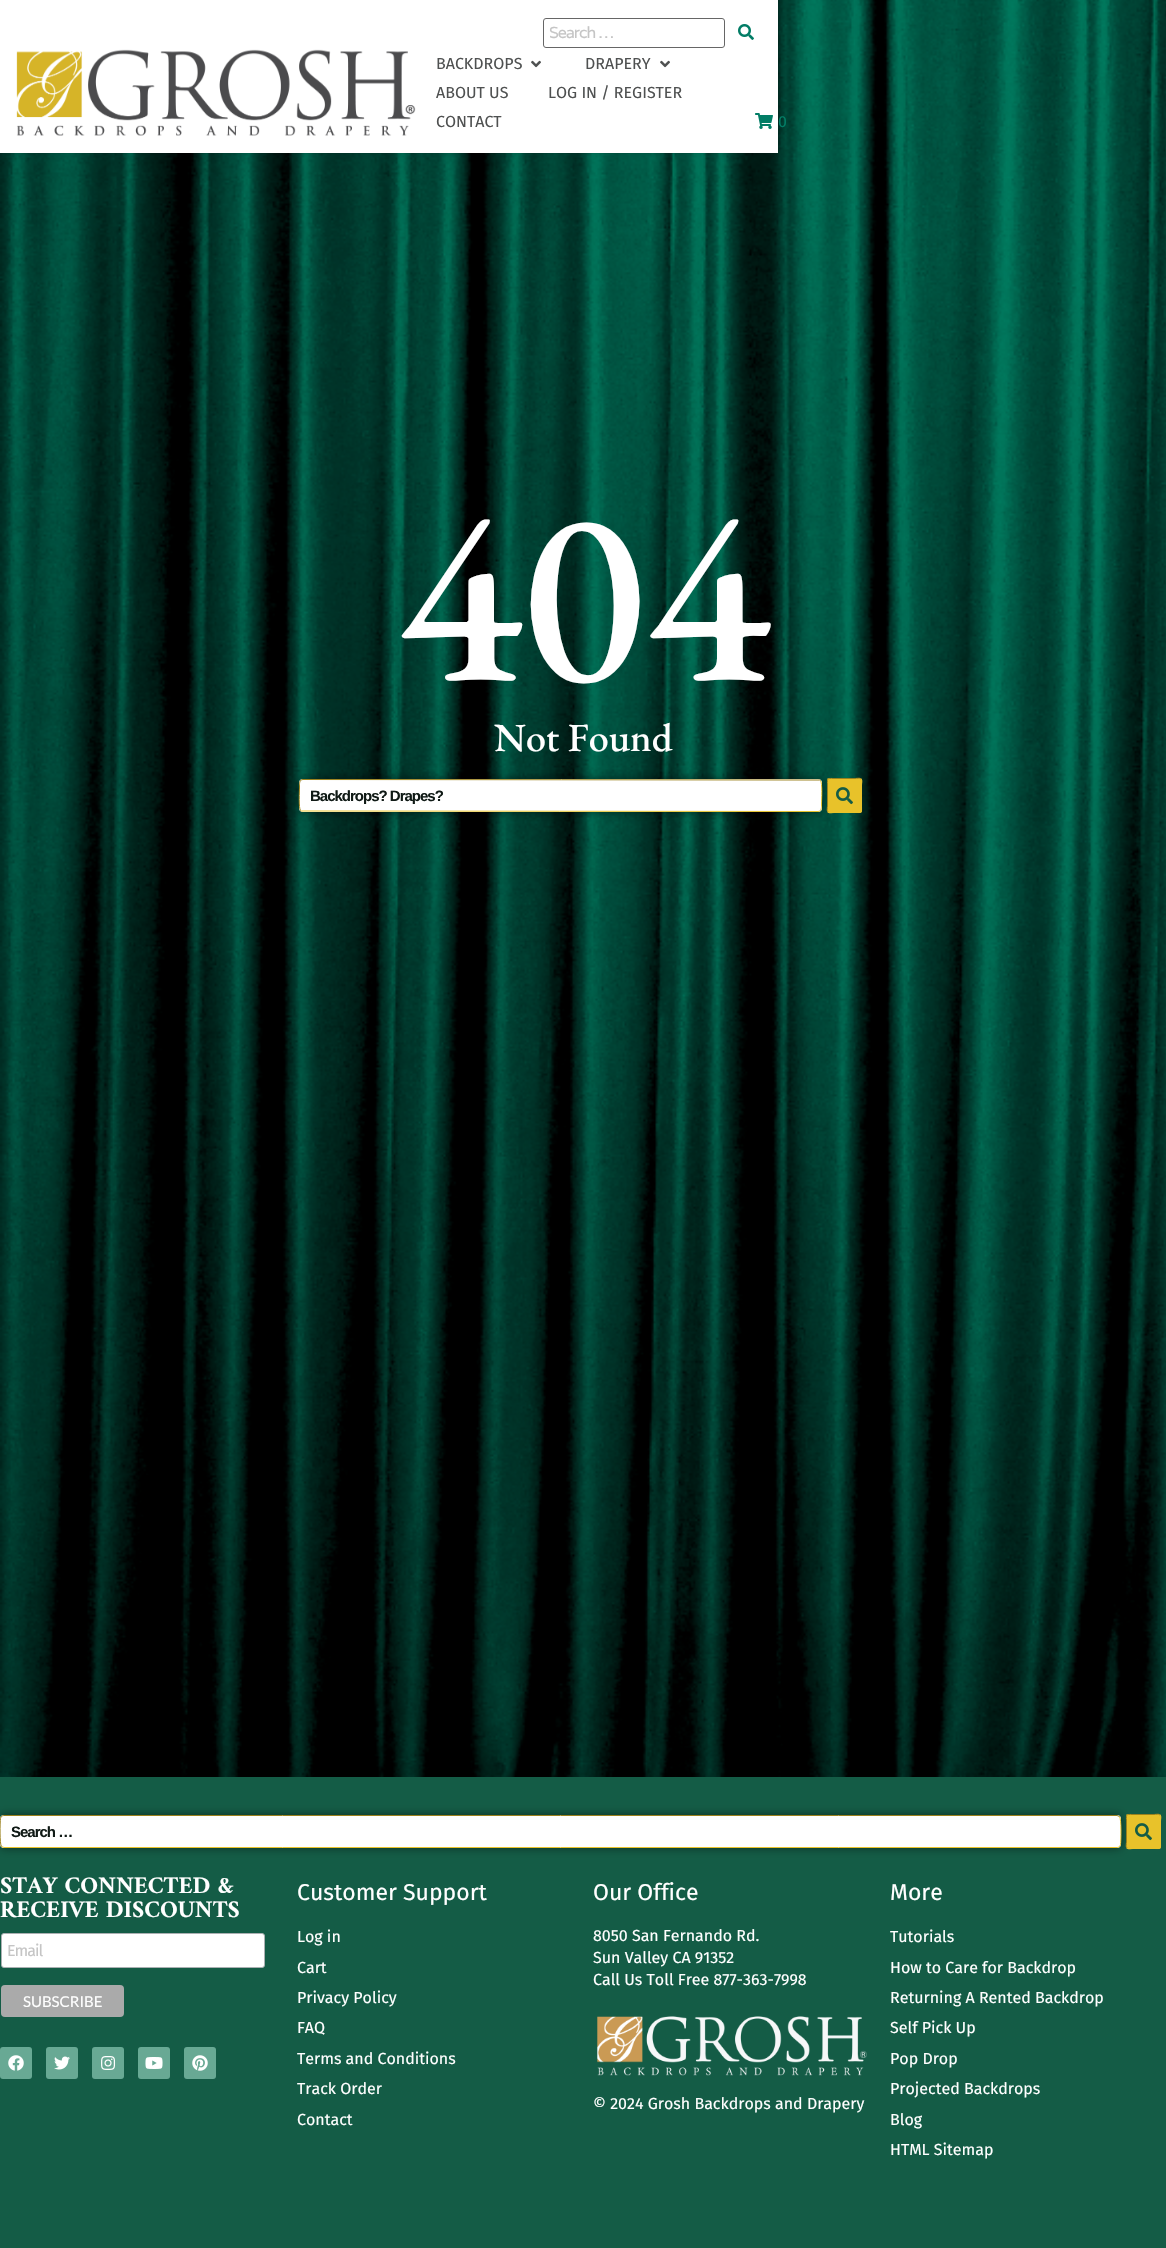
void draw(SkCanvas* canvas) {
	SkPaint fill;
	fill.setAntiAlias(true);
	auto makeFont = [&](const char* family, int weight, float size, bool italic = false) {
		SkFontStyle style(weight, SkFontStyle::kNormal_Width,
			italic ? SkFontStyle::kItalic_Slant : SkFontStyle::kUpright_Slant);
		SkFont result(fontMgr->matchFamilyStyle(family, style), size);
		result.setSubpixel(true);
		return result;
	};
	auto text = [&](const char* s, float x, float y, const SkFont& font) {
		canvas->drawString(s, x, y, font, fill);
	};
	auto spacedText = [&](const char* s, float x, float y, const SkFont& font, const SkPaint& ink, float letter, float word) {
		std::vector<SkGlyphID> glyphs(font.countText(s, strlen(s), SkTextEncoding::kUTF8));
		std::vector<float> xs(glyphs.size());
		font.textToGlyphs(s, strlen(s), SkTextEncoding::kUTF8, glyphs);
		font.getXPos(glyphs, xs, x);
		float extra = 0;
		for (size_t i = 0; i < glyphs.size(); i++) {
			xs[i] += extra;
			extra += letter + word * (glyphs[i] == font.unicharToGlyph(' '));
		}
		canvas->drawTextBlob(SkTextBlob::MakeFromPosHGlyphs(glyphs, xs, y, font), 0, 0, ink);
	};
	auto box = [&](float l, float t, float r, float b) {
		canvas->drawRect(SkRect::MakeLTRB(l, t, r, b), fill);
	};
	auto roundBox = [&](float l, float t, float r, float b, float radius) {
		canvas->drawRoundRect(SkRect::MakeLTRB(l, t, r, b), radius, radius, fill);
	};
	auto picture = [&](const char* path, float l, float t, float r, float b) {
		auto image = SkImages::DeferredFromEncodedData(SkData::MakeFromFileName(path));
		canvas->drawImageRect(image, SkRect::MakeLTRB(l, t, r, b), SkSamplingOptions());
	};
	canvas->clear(0xFFFFFFFF);
	picture("image4.png", 0, 0, 1166, 1777);
	fill.setColor(0x24000000);
	fill.setMaskFilter(SkMaskFilter::MakeBlur(kNormal_SkBlurStyle, 2));
	canvas->drawRect(SkRect::MakeLTRB(0, 0, 778, 153), fill);
	fill.setMaskFilter(nullptr);
	fill.setColor(0xFFFFFFFF);
	box(0, 0, 778, 153);
	picture("image0.png", 16, 49, 416, 136);
	fill.setStyle(SkPaint::kStroke_Style);
	fill.setStrokeWidth(1);
	fill.setColor(0xFF666666);
	canvas->drawRoundRect(SkRect::MakeLTRB(543.5f, 18.5f, 724.5f, 47.5f), 2.5f, 2.5f, fill);
	picture("image1.png", 738, 24, 754, 40);
	picture("image2.png", 531, 60, 541, 68);
	picture("image2.png", 660, 60, 670, 68);
	picture("image3.png", 755, 113, 773, 129);
	fill.setStyle(SkPaint::kFill_Style);
	fill.setColor(0x80000000);
	fill.setMaskFilter(SkMaskFilter::MakeBlur(kNormal_SkBlurStyle, 5));
	canvas->drawRoundRect(SkRect::MakeLTRB(299, 779, 822, 812), 4, 4, fill);
	fill.setMaskFilter(nullptr);
	fill.setColor(0xFFFFFFFF);
	roundBox(299, 779, 822, 812, 4);
	fill.setStyle(SkPaint::kStroke_Style);
	fill.setColor(0xFFE8C22A);
	canvas->drawPath(SkPathBuilder().moveTo(820.5f, 780.5f).cubicTo(822.5f, 783, 821.5f, 800, 821.5f, 804).cubicTo(821.5f, 806.5f, 822, 811.5f, 818, 811.5f).lineTo(301.5f, 811).lineTo(300.5f, 810.5f).detach(), fill);
	fill.setColor(0xFF9B811C);
	canvas->drawPath(SkPathBuilder().moveTo(300.5f, 810.5f).cubicTo(298.5f, 808, 299.5f, 791, 299.5f, 787).cubicTo(299.5f, 784.5f, 299, 779.5f, 303, 779.5f).lineTo(819.5f, 780).lineTo(820.5f, 780.5f).detach(), fill);
	fill.setStyle(SkPaint::kFill_Style);
	fill.setColor(0xFFE8C22A);
	roundBox(827, 778, 862, 813, 2);
	fill.setStyle(SkPaint::kStroke_Style);
	canvas->drawPath(SkPathBuilder().moveTo(861, 779).cubicTo(862.5f, 780.5f, 861.5f, 783, 861.5f, 785).lineTo(861.5f, 806).cubicTo(861.5f, 813.5f, 862.5f, 812.5f, 855, 812.5f).lineTo(834, 812.5f).cubicTo(832, 812.5f, 829.5f, 813.5f, 828, 812).detach(), fill);
	fill.setColor(0xFF9B811C);
	canvas->drawPath(SkPathBuilder().moveTo(828, 812).cubicTo(826.5f, 810.5f, 827.5f, 808, 827.5f, 806).lineTo(827.5f, 785).cubicTo(827.5f, 777.5f, 826.5f, 778.5f, 834, 778.5f).lineTo(855, 778.5f).cubicTo(857, 778.5f, 859.5f, 777.5f, 861, 779).detach(), fill);
	picture("image5.png", 836, 787, 853, 805);
	fill.setStyle(SkPaint::kFill_Style);
	fill.setColor(0xFF145C46);
	box(0, 1777, 1166, 2248);
	fill.setColor(0x80000000);
	fill.setMaskFilter(SkMaskFilter::MakeBlur(kNormal_SkBlurStyle, 5));
	canvas->drawRoundRect(SkRect::MakeLTRB(0, 1815, 1121, 1848), 4, 4, fill);
	fill.setMaskFilter(nullptr);
	fill.setColor(0xFFFFFFFF);
	roundBox(0, 1815, 1121, 1848, 4);
	fill.setStyle(SkPaint::kStroke_Style);
	fill.setColor(0xFFE8C22A);
	canvas->drawPath(SkPathBuilder().moveTo(1119.5f, 1816.5f).cubicTo(1121.5f, 1818.5f, 1121, 1841, 1120.5f, 1844.5f).lineTo(1120, 1846).cubicTo(1119.5f, 1847, 1118, 1847.5f, 1117, 1847.5f).lineTo(4, 1847.5f).lineTo(1.5f, 1846.5f).detach(), fill);
	fill.setColor(0xFF9B811C);
	canvas->drawPath(SkPathBuilder().moveTo(1.5f, 1846.5f).cubicTo(-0.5f, 1844.5f, 0, 1822, 0.5f, 1818.5f).lineTo(1, 1817).cubicTo(1.5f, 1816, 3, 1815.5f, 4, 1815.5f).lineTo(1117, 1815.5f).lineTo(1119.5f, 1816.5f).detach(), fill);
	fill.setStyle(SkPaint::kFill_Style);
	fill.setColor(0xFFE8C22A);
	roundBox(1126, 1814, 1161, 1849, 2);
	fill.setStyle(SkPaint::kStroke_Style);
	canvas->drawPath(SkPathBuilder().moveTo(1160, 1815).cubicTo(1161.5f, 1816.5f, 1160.5f, 1819, 1160.5f, 1821).lineTo(1160.5f, 1842).cubicTo(1160.5f, 1849.5f, 1161.5f, 1848.5f, 1154, 1848.5f).lineTo(1133, 1848.5f).cubicTo(1131, 1848.5f, 1128.5f, 1849.5f, 1127, 1848).detach(), fill);
	fill.setColor(0xFF9B811C);
	canvas->drawPath(SkPathBuilder().moveTo(1127, 1848).cubicTo(1125.5f, 1846.5f, 1126.5f, 1844, 1126.5f, 1842).lineTo(1126.5f, 1821).cubicTo(1126.5f, 1813.5f, 1125.5f, 1814.5f, 1133, 1814.5f).lineTo(1154, 1814.5f).cubicTo(1156, 1814.5f, 1158.5f, 1813.5f, 1160, 1815).detach(), fill);
	picture("image5.png", 1135, 1823, 1152, 1841);
	fill.setStyle(SkPaint::kFill_Style);
	fill.setColor(0xFFFFFFFF);
	canvas->drawRoundRect(SkRect::MakeLTRB(1.5f, 1933.5f, 264.5f, 1967.5f), 2.5f, 2.5f, fill);
	fill.setStyle(SkPaint::kStroke_Style);
	fill.setColor(0xFFABB0B2);
	canvas->drawRoundRect(SkRect::MakeLTRB(1.5f, 1933.5f, 264.5f, 1967.5f), 2.5f, 2.5f, fill);
	fill.setStyle(SkPaint::kFill_Style);
	fill.setColor(0xFFAAAAAA);
	roundBox(1, 1985, 124, 2017, 4);
	fill.setColor(0xFF68A994);
	roundBox(0, 2047, 32, 2079, 3);
	picture("image6.png", 8, 2055, 24, 2071);
	roundBox(46, 2047, 78, 2079, 3);
	picture("image7.png", 54, 2056, 70, 2070);
	roundBox(92, 2047, 124, 2079, 3);
	picture("image8.png", 101, 2056, 116, 2070);
	roundBox(138, 2047, 170, 2079, 3);
	picture("image9.png", 145, 2057, 163, 2069);
	roundBox(184, 2047, 216, 2079, 3);
	picture("image10.png", 192, 2055, 208, 2071);
	picture("image11.png", 597, 2016, 867, 2076);
	auto font1 = makeFont("Varela", 400, 16);
	fill.setColor(0xFFC5C5C5);
	spacedText("Search …", 549, 38, font1, fill, -1, 0);
	auto font2 = makeFont("Fira Sans", 400, 16);
	fill.setColor(0xFF4F5151);
	text("BACKDROPS", 436, 69, font2);
	text("DRAPERY", 585, 69, font2);
	text("ABOUT US", 436, 98, font2);
	text("LOG IN / REGISTER", 548, 98, font2);
	text("CONTACT", 436, 127, font2);
	fill.setColor(0xFF027D66);
	text("0", 778, 127, font2);
	auto font3 = makeFont("EB Garamond", 500, 250);
	fill.setColor(0xFFFFFFFF);
	text("404", 397, 680, font3);
	auto font4 = makeFont("EB Garamond", 500, 40);
	text("Not Found", 494, 751, font4);
	canvas->save();
	canvas->clipRect(SkRect::MakeLTRB(310, 787, 817, 804));
	auto font5 = makeFont("Liberation Sans", 700, 15);
	fill.setColor(0xFF101A16);
	spacedText("Backdrops? Drapes?", 310, 801, font5, fill, -1, 0);
	canvas->restore();
	spacedText("Search …", 11, 1837, font5, fill, -1, 0);
	auto font6 = makeFont("Amiri", 700, 24);
	fill.setColor(0xFFFFFFFF);
	text("STAY CONNECTED &", 0, 1893, font6);
	text("RECEIVE DISCOUNTS", 0, 1917, font6);
	fill.setColor(0xFFC5C5C5);
	spacedText("Email", 7, 1956, font2, fill, -1, 0);
	auto font7 = makeFont("Lato", 400, 15);
	fill.setColor(0xFFFFFFFF);
	text("SUBSCRIBE", 23, 2007, font7);
	auto font8 = makeFont("Fira Sans", 400, 23);
	text("Customer Support", 297, 1900, font8);
	text("Log in", 297, 1942, font2);
	text("Cart", 297, 1973, font2);
	text("Privacy Policy", 297, 2003, font2);
	text("FAQ", 297, 2033, font2);
	text("Terms and Conditions", 297, 2064, font2);
	text("Track Order", 297, 2094, font2);
	text("Contact", 297, 2125, font2);
	text("Our Office", 593, 1900, font8);
	text("8050 San Fernando Rd.", 593, 1941, font2);
	text("Sun Valley CA 91352", 593, 1963, font2);
	text("Call Us Toll Free 877-363-7998", 593, 1985, font2);
	text("© 2024 Grosh Backdrops and Drapery", 593, 2109, font2);
	text("More", 890, 1900, font8);
	text("Tutorials", 890, 1942, font2);
	text("How to Care for Backdrop", 890, 1973, font2);
	text("Returning A Rented Backdrop", 890, 2003, font2);
	text("Self Pick Up", 890, 2033, font2);
	text("Pop Drop", 890, 2064, font2);
	text("Projected Backdrops", 890, 2094, font2);
	text("Blog", 890, 2125, font2);
	text("HTML Sitemap", 890, 2155, font2);
}
